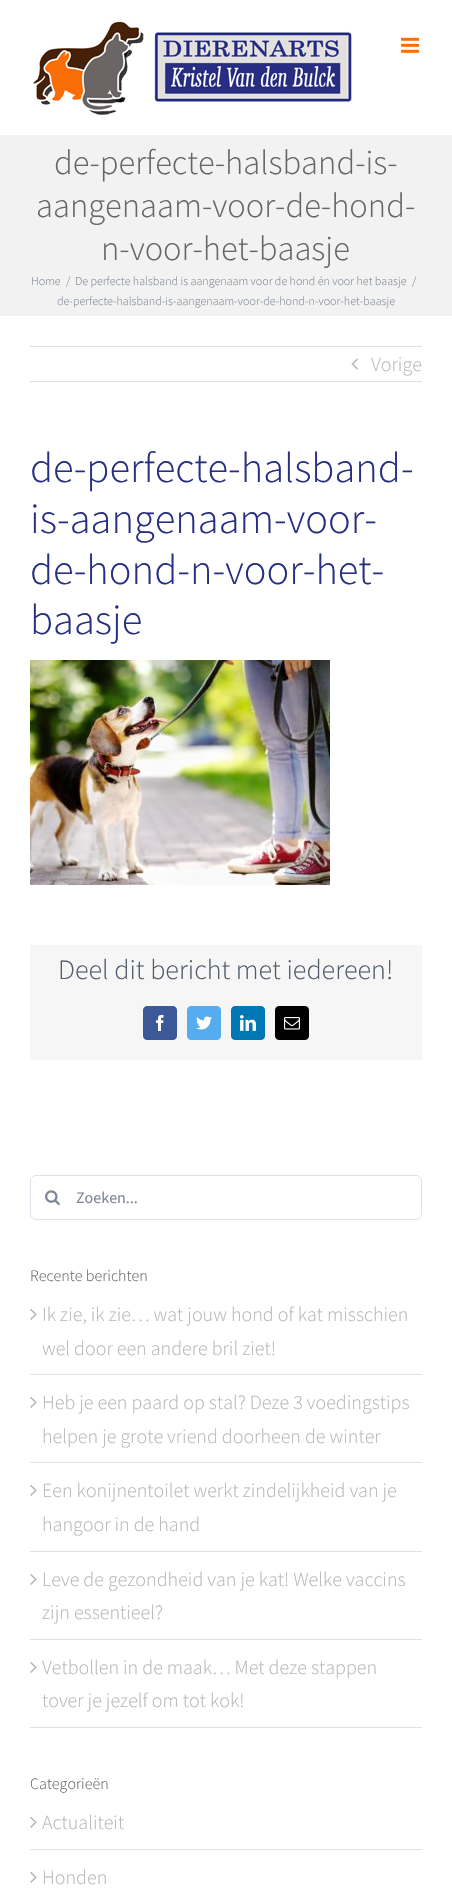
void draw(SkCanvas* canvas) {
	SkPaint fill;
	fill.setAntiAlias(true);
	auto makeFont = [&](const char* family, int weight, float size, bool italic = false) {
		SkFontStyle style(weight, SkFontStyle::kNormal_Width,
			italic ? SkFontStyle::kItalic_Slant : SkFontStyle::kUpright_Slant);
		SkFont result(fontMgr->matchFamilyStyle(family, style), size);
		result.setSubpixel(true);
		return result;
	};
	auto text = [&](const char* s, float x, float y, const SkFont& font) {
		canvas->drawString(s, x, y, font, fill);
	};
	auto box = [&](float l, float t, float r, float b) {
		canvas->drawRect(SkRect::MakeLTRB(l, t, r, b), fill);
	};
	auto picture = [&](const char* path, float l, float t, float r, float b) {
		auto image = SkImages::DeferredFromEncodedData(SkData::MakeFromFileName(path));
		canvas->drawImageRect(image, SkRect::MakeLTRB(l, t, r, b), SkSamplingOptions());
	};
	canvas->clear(0xFFFFFFFF);
	picture("image0.png", 30, 20, 352, 115);
	picture("image1.png", 401, 37, 419, 53);
	fill.setColor(0xFFF2F2F2);
	box(0, 135, 452, 316);
	fill.setColor(0xFFDBE2EA);
	box(30, 346, 422, 347);
	box(30, 381, 422, 382);
	picture("image2.png", 351, 358, 358, 370);
	picture("image3.png", 30, 660, 330, 885);
	fill.setColor(0xFFF6F6F6);
	box(30, 945, 422, 1060);
	fill.setColor(0xFF3B5998);
	canvas->drawRoundRect(SkRect::MakeLTRB(143.5f, 1006.5f, 176.5f, 1039.5f), 3.5f, 3.5f, fill);
	fill.setStyle(SkPaint::kStroke_Style);
	fill.setStrokeWidth(1);
	canvas->drawRoundRect(SkRect::MakeLTRB(143.5f, 1006.5f, 176.5f, 1039.5f), 3.5f, 3.5f, fill);
	picture("image4.png", 156, 1015, 164, 1031);
	fill.setStyle(SkPaint::kFill_Style);
	fill.setColor(0xFF55ACEE);
	canvas->drawRoundRect(SkRect::MakeLTRB(187.5f, 1006.5f, 220.5f, 1039.5f), 3.5f, 3.5f, fill);
	fill.setStyle(SkPaint::kStroke_Style);
	canvas->drawRoundRect(SkRect::MakeLTRB(187.5f, 1006.5f, 220.5f, 1039.5f), 3.5f, 3.5f, fill);
	picture("image5.png", 196, 1016, 212, 1030);
	fill.setStyle(SkPaint::kFill_Style);
	fill.setColor(0xFF0077B5);
	canvas->drawRoundRect(SkRect::MakeLTRB(231.5f, 1006.5f, 264.5f, 1039.5f), 3.5f, 3.5f, fill);
	fill.setStyle(SkPaint::kStroke_Style);
	canvas->drawRoundRect(SkRect::MakeLTRB(231.5f, 1006.5f, 264.5f, 1039.5f), 3.5f, 3.5f, fill);
	picture("image6.png", 240, 1015, 256, 1031);
	fill.setStyle(SkPaint::kFill_Style);
	fill.setColor(0xFF000000);
	canvas->drawRoundRect(SkRect::MakeLTRB(275.5f, 1006.5f, 308.5f, 1039.5f), 3.5f, 3.5f, fill);
	fill.setStyle(SkPaint::kStroke_Style);
	canvas->drawRoundRect(SkRect::MakeLTRB(275.5f, 1006.5f, 308.5f, 1039.5f), 3.5f, 3.5f, fill);
	picture("image7.png", 284, 1017, 300, 1030);
	fill.setColor(0xFFDBE2EA);
	canvas->drawRoundRect(SkRect::MakeLTRB(30.5f, 1175.5f, 421.5f, 1219.5f), 5.5f, 5.5f, fill);
	picture("image8.png", 45, 1190, 60, 1206);
	fill.setStyle(SkPaint::kFill_Style);
	box(30, 1374, 422, 1375);
	picture("image9.png", 30, 1309, 37, 1320);
	box(30, 1462, 422, 1463);
	picture("image9.png", 30, 1397, 37, 1408);
	box(30, 1551, 422, 1552);
	picture("image9.png", 30, 1485, 37, 1496);
	box(30, 1639, 422, 1640);
	picture("image9.png", 30, 1574, 37, 1585);
	box(30, 1727, 422, 1728);
	picture("image9.png", 30, 1662, 37, 1673);
	box(30, 1849, 422, 1850);
	picture("image9.png", 30, 1817, 37, 1828);
	picture("image9.png", 30, 1872, 37, 1883);
	auto font1 = makeFont("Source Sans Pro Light", 300, 34.5f);
	fill.setColor(0xFF6A6565);
	text("de-perfecte-halsband-is-", 54, 174, font1);
	text("aangenaam-voor-de-hond-", 36, 217, font1);
	text("n-voor-het-baasje", 101, 260, font1);
	auto font2 = makeFont("Source Sans Pro Light", 300, 12);
	fill.setColor(0xFF7F8795);
	text("Home", 31, 285, font2);
	text("/", 66, 285, font2);
	text("De perfecte halsband is aangenaam voor de hond én voor het baasje", 75, 285, font2);
	text("/", 412, 285, font2);
	text("de-perfecte-halsband-is-aangenaam-voor-de-hond-n-voor-het-baasje", 57, 305, font2);
	auto font3 = makeFont("Source Sans Pro Light", 300, 20);
	fill.setColor(0xFFB7B7B7);
	text("Vorige", 371, 371, font3);
	auto font4 = makeFont("Source Sans Pro Light", 300, 42.5f);
	fill.setColor(0xFF282E82);
	text("de-perfecte-halsband-", 30, 482, font4);
	text("is-aangenaam-voor-", 30, 533, font4);
	text("de-hond-n-voor-het-", 30, 584, font4);
	text("baasje", 30, 634, font4);
	auto font5 = makeFont("Source Sans Pro Light", 300, 28);
	fill.setColor(0xFF515B69);
	text("Deel dit bericht met iedereen!", 58, 979, font5);
	auto font6 = makeFont("Source Sans Pro", 400, 16);
	fill.setColor(0xFF7F8795);
	text("Zoeken...", 76, 1203, font6);
	auto font7 = makeFont("Source Sans Pro Light", 300, 16);
	fill.setColor(0xFF6A6565);
	text("Recente berichten", 30, 1281, font7);
	fill.setColor(0xFFB7B7B7);
	text("Ik zie, ik zie… wat jouw hond of kat misschien", 42, 1321, font3);
	text("wel door een andere bril ziet!", 42, 1355, font3);
	text("Heb je een paard op stal? Deze 3 voedingstips", 42, 1409, font3);
	text("helpen je grote vriend doorheen de winter", 42, 1443, font3);
	text("Een konijnentoilet werkt zindelijkheid van je", 42, 1497, font3);
	text("hangoor in de hand", 42, 1531, font3);
	text("Leve de gezondheid van je kat! Welke vaccins", 42, 1586, font3);
	text("zijn essentieel?", 42, 1619, font3);
	text("Vetbollen in de maak… Met deze stappen", 42, 1674, font3);
	text("tover je jezelf om tot kok!", 42, 1707, font3);
	fill.setColor(0xFF6A6565);
	text("Categorieën", 30, 1789, font7);
	fill.setColor(0xFFB7B7B7);
	text("Actualiteit", 42, 1829, font3);
	text("Honden", 42, 1884, font3);
}
